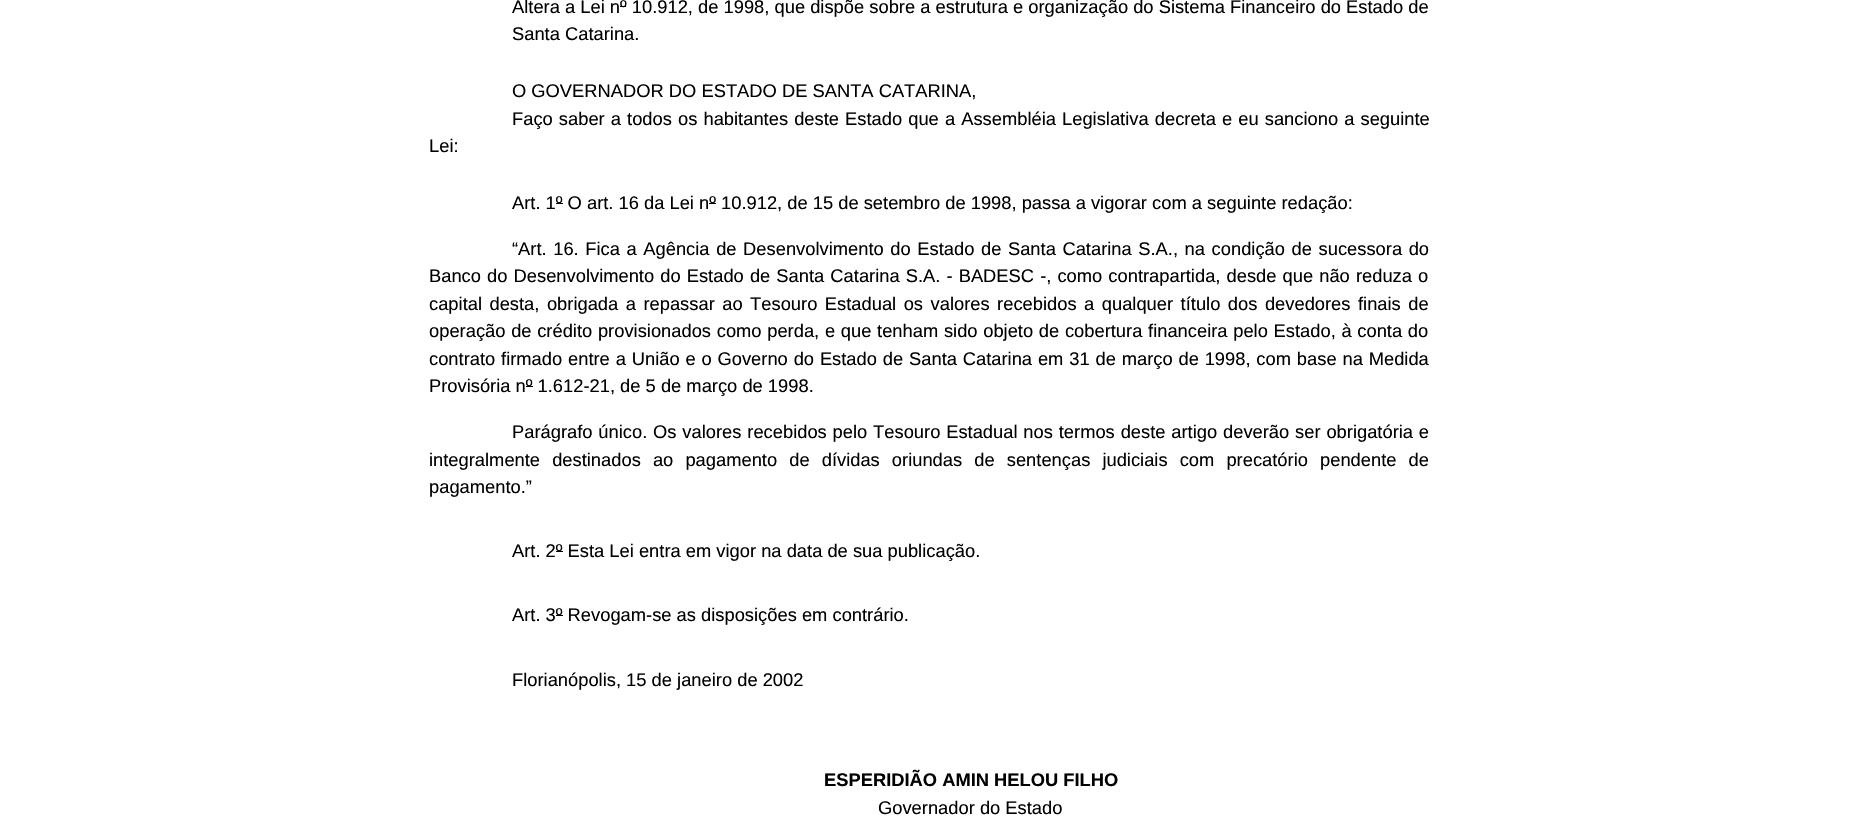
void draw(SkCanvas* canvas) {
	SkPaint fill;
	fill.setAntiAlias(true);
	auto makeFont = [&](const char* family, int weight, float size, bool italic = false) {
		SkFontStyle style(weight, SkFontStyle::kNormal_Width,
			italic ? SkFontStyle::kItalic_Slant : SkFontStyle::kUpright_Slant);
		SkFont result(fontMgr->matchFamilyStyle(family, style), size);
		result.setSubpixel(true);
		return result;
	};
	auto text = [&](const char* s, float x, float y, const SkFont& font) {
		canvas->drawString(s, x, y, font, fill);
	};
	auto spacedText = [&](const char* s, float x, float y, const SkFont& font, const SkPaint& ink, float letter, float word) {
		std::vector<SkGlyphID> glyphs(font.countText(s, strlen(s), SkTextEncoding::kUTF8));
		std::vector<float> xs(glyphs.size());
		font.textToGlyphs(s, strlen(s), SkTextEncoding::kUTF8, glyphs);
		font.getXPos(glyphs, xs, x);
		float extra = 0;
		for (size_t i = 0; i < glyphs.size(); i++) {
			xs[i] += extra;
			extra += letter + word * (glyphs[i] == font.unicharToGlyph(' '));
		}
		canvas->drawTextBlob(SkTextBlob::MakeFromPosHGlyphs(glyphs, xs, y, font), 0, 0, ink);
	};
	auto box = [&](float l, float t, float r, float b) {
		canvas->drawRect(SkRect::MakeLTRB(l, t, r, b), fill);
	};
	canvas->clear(0xFFFFFFFF);
	fill.setColor(0xFF000000);
	box(620, 6, 626, 7);
	box(556, 203, 563, 204);
	box(709, 203, 716, 204);
	box(526, 386, 533, 387);
	box(556, 551, 563, 552);
	box(556, 615, 563, 616);
	auto font1 = makeFont("Liberation Sans", 400, 18.33f);
	text("Altera a Lei nº 10.912, de 1998, que dispõe sobre a estrutura e organização do Sistema Financeiro do Estado de", 512, 13, font1);
	text("Santa Catarina.", 512, 40, font1);
	text("O GOVERNADOR DO ESTADO DE SANTA CATARINA,", 512, 97, font1);
	spacedText("Faço saber a todos os habitantes deste Estado que a Assembléia Legislativa decreta e eu sanciono a seguinte", 512, 125, font1, fill, 0, 1);
	text("Lei:", 429, 152, font1);
	text("Art. 1º O art. 16 da Lei nº 10.912, de 15 de setembro de 1998, passa a vigorar com a seguinte redação:", 512, 209, font1);
	spacedText("“Art. 16. Fica a Agência de Desenvolvimento do Estado de Santa Catarina S.A., na condição de sucessora do", 512, 255, font1, fill, 0, 1.5f);
	spacedText("Banco do Desenvolvimento do Estado de Santa Catarina S.A. - BADESC -, como contrapartida, desde que não reduza o", 429, 282, font1, fill, 0, 1);
	spacedText("capital desta, obrigada a repassar ao Tesouro Estadual os valores recebidos a qualquer título dos devedores finais de", 429, 310, font1, fill, 0, 2.4f);
	spacedText("operação de crédito provisionados como perda, e que tenham sido objeto de cobertura financeira pelo Estado, à conta do", 429, 337, font1, fill, 0, 0.6f);
	spacedText("contrato firmado entre a União e o Governo do Estado de Santa Catarina em 31 de março de 1998, com base na Medida", 429, 365, font1, fill, 0, 0.75f);
	text("Provisória nº 1.612-21, de 5 de março de 1998.", 429, 392, font1);
	spacedText("Parágrafo único. Os valores recebidos pelo Tesouro Estadual nos termos deste artigo deverão ser obrigatória e", 512, 438, font1, fill, 0, 0.75f);
	spacedText("integralmente destinados ao pagamento de dívidas oriundas de sentenças judiciais com precatório pendente de", 429, 466, font1, fill, 0, 7);
	text("pagamento.”", 429, 493, font1);
	text("Art. 2º Esta Lei entra em vigor na data de sua publicação.", 512, 557, font1);
	text("Art. 3º Revogam-se as disposições em contrário.", 512, 621, font1);
	text("Florianópolis, 15 de janeiro de 2002", 512, 686, font1);
	auto font2 = makeFont("Liberation Sans", 700, 18.33f);
	text("ESPERIDIÃO AMIN HELOU FILHO", 824, 786, font2);
	text("Governador do Estado", 878, 814, font1);
}
